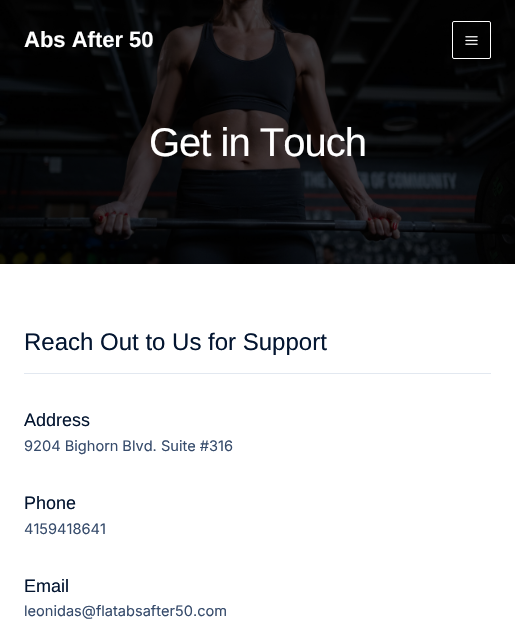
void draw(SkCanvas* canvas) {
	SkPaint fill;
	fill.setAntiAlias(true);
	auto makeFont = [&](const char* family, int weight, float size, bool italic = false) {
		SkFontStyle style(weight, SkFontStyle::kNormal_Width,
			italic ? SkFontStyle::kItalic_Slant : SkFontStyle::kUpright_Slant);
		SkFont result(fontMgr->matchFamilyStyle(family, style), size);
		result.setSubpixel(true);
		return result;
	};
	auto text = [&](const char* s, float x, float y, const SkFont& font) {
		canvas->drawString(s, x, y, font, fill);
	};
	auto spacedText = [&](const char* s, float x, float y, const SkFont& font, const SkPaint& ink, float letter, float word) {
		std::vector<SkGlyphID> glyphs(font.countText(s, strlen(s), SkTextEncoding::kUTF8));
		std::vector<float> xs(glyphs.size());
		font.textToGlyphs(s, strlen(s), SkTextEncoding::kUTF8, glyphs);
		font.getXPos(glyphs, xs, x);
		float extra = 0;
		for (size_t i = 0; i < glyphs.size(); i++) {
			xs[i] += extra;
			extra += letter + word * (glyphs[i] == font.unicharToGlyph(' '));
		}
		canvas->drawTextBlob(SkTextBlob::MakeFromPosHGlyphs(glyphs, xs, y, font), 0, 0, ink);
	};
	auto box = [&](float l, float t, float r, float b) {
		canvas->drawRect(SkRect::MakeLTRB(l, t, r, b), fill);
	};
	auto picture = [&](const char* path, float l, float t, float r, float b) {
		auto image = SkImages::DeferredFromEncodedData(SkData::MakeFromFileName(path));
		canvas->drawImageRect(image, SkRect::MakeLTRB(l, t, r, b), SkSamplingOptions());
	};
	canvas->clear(0xFFFFFFFF);
	picture("image1.png", 0, 0, 515, 264);
	fill.setStyle(SkPaint::kStroke_Style);
	fill.setStrokeWidth(1);
	fill.setColor(0xFFFFFFFF);
	canvas->drawRoundRect(SkRect::MakeLTRB(452.5f, 21.5f, 490.5f, 58.5f), 1.5f, 1.5f, fill);
	picture("image0.png", 465, 36, 478, 45);
	fill.setStyle(SkPaint::kFill_Style);
	fill.setColor(0xFFE2E8F0);
	box(24, 373, 491, 374);
	auto font1 = makeFont("Liberation Sans", 700, 22);
	fill.setColor(0xFFFFFFFF);
	text("Abs After 50", 24, 47, font1);
	auto font2 = makeFont("Liberation Sans", 400, 40);
	spacedText("Get in Touch", 149, 156, font2, fill, -1, 0);
	auto font3 = makeFont("Liberation Sans", 400, 24);
	fill.setColor(0xFF031530);
	text("Reach Out to Us for Support", 24, 350, font3);
	auto font4 = makeFont("Liberation Sans", 400, 18);
	text("Address", 24, 426, font4);
	auto font5 = makeFont("Inter", 400, 14.6f);
	fill.setColor(0xFF374C6C);
	text("9204 Bighorn Blvd. Suite #316", 24, 451, font5);
	fill.setColor(0xFF031530);
	text("Phone", 24, 509, font4);
	fill.setColor(0xFF374C6C);
	text("4159418641", 24, 534, font5);
	fill.setColor(0xFF031530);
	text("Email", 24, 592, font4);
	fill.setColor(0xFF374C6C);
	text("leonidas@flatabsafter50.com", 24, 616, font5);
}
